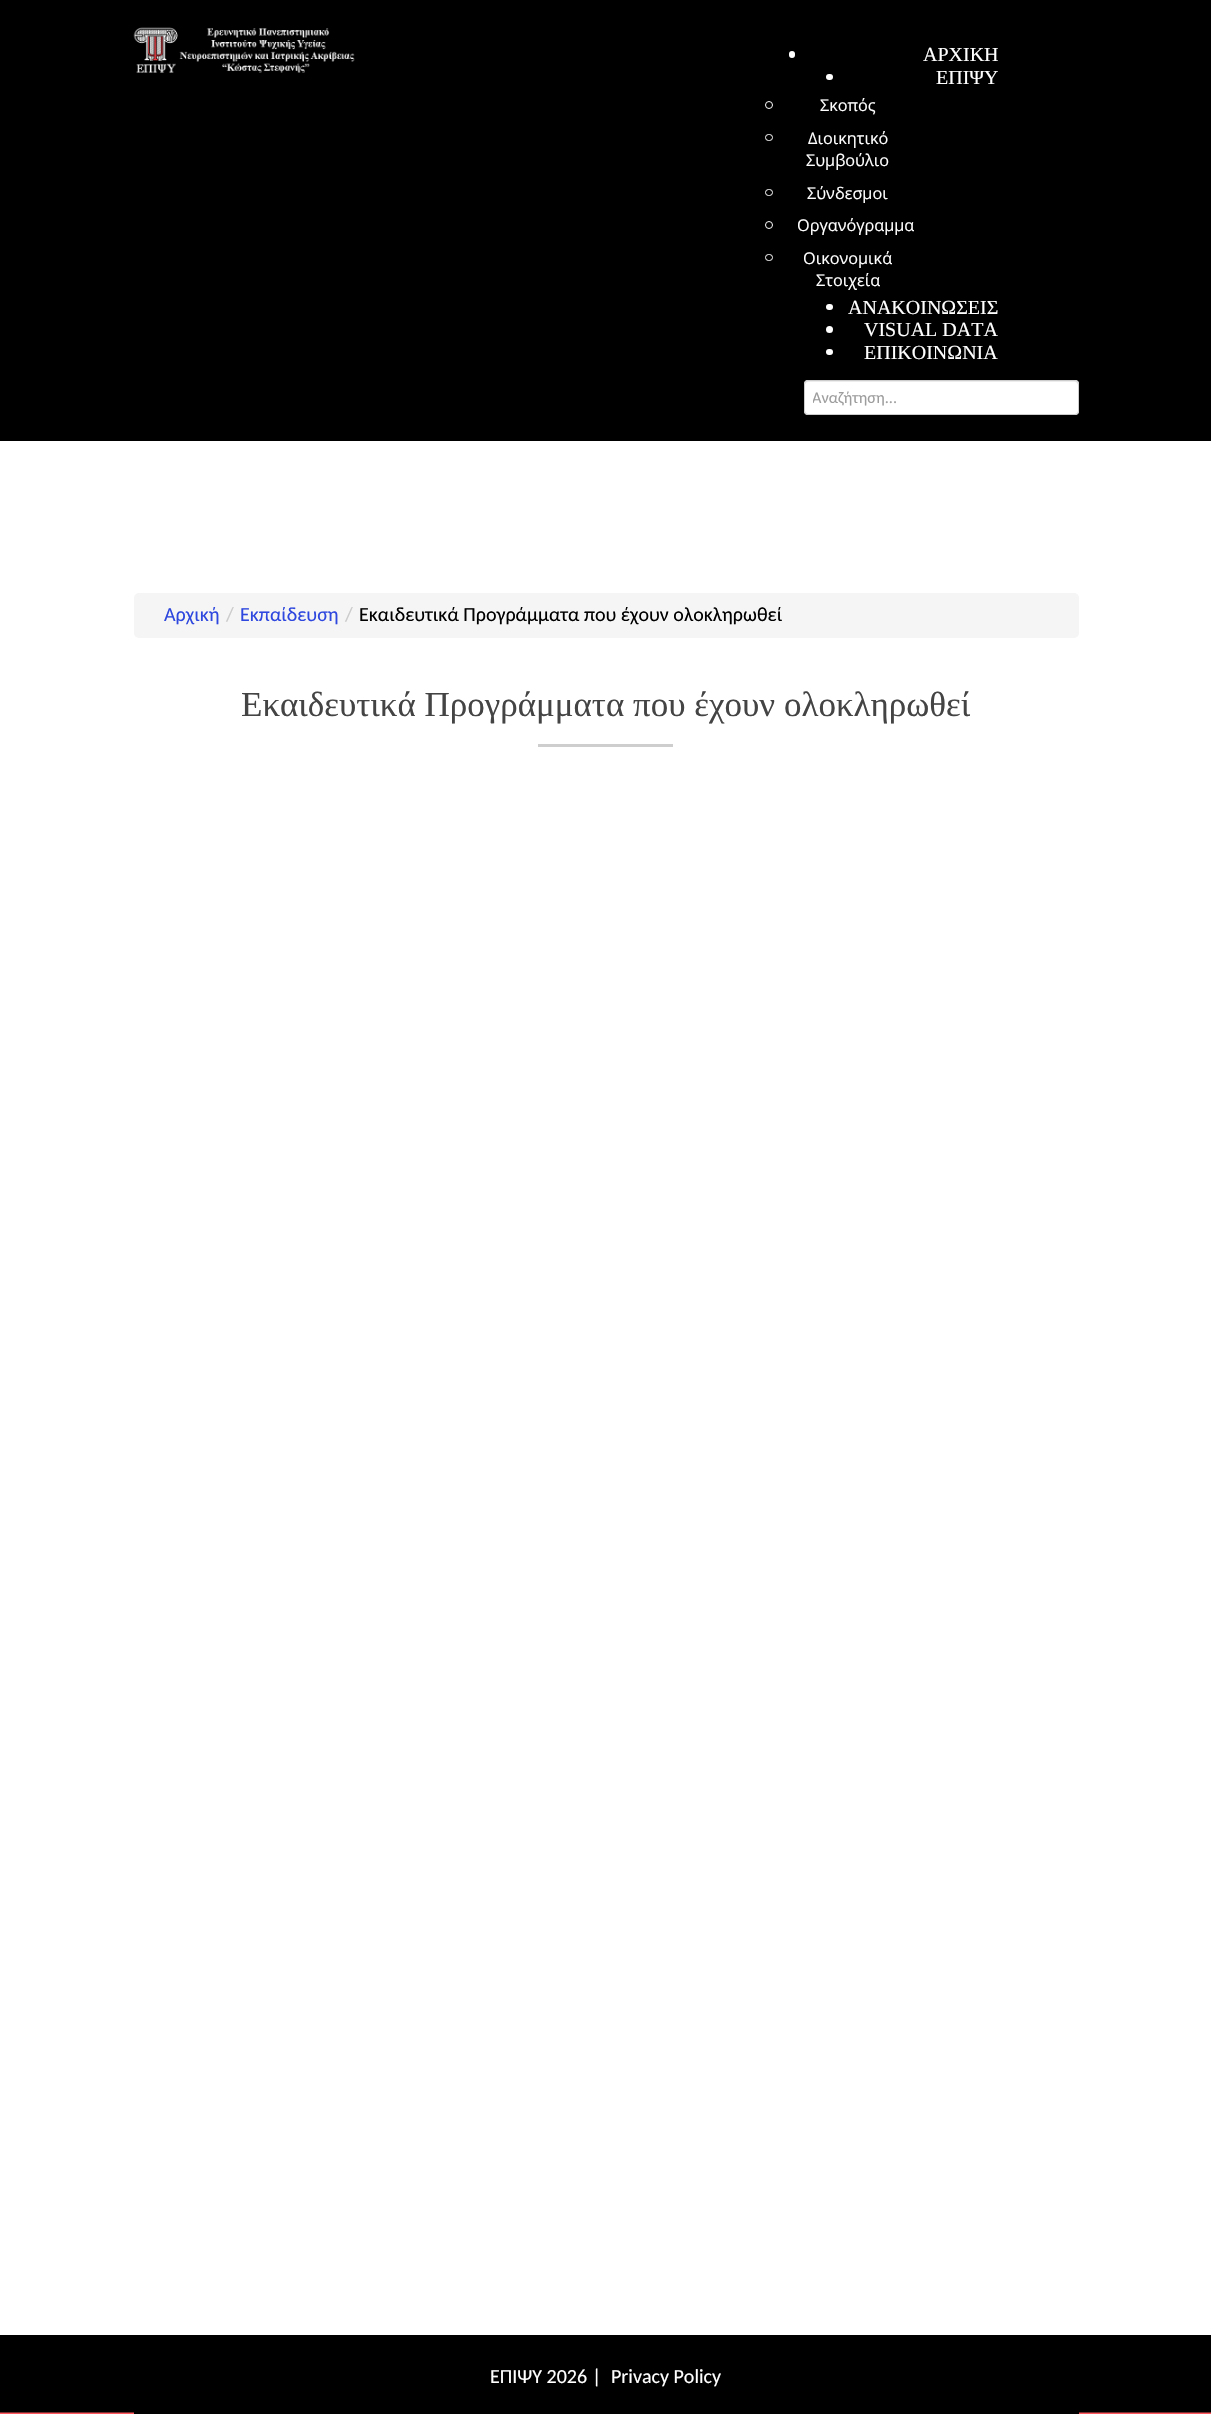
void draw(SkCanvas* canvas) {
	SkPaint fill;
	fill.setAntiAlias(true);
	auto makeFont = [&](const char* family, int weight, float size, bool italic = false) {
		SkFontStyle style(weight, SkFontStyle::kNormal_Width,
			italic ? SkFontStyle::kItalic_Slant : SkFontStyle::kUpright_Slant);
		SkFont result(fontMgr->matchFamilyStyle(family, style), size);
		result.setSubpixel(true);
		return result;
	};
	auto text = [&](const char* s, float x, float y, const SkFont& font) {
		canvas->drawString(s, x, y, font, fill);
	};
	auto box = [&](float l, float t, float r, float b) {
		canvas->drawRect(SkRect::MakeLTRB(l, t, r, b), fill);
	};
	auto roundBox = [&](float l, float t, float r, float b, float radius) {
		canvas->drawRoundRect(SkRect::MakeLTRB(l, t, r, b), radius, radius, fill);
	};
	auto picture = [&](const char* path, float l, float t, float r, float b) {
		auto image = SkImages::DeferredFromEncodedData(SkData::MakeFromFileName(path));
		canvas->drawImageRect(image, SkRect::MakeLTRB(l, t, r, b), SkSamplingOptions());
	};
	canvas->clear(0xFFFFFFFF);
	fill.setColor(0xFF000000);
	box(0, 0, 1211, 441);
	picture("image0.png", 133, 27, 355, 73);
	fill.setColor(0xFFFFFFFF);
	roundBox(789, 51, 795, 58, 3);
	roundBox(826, 74, 833, 80, 3);
	fill.setStyle(SkPaint::kStroke_Style);
	fill.setStrokeWidth(1);
	canvas->drawCircle(769, 105, 3.5f, fill);
	canvas->drawRoundRect(SkRect::MakeLTRB(765.5f, 134.5f, 772.5f, 140.5f), 3, 3, fill);
	canvas->drawRoundRect(SkRect::MakeLTRB(765.5f, 189.5f, 772.5f, 195.5f), 3, 3, fill);
	canvas->drawCircle(769, 225, 3.5f, fill);
	canvas->drawRoundRect(SkRect::MakeLTRB(765.5f, 254.5f, 772.5f, 260.5f), 3, 3, fill);
	fill.setStyle(SkPaint::kFill_Style);
	roundBox(826, 304, 833, 310, 3);
	canvas->drawCircle(829.5f, 329.5f, 3.5f, fill);
	roundBox(826, 349, 833, 355, 3);
	roundBox(804, 380, 1079, 415, 4);
	fill.setColor(0xFFECECEC);
	canvas->drawPath(SkPathBuilder().moveTo(808, 382).lineTo(1075, 382).cubicTo(1076, 382, 1078, 384, 1078, 385).lineTo(1078, 384).cubicTo(1078, 382, 1077, 381, 1076, 381).lineTo(808, 381).cubicTo(806, 381, 805, 382, 805, 384).lineTo(805, 385).cubicTo(805, 384, 806, 382, 808, 382).close().detach(), fill);
	fill.setStyle(SkPaint::kStroke_Style);
	fill.setColor(0xFFCCCCCC);
	canvas->drawRoundRect(SkRect::MakeLTRB(804.5f, 380.5f, 1078.5f, 414.5f), 3.5f, 3.5f, fill);
	fill.setStyle(SkPaint::kFill_Style);
	fill.setColor(0xFFF5F5F5);
	roundBox(134, 593, 1079, 638, 5);
	fill.setColor(0xFFCECECE);
	box(538, 744, 673, 747);
	fill.setColor(0xFF000000);
	box(0, 2335, 1211, 2413);
	picture("image1.png", 0, 2412, 1211, 2414);
	box(134, 2412, 1079, 2414);
	auto font1 = makeFont("Liberation Serif", 400, 20);
	fill.setColor(0xFFFFFFFF);
	text("ΑΡΧΙΚΗ", 923, 61, font1);
	text("ΕΠΙΨΥ", 936, 84, font1);
	auto font2 = makeFont("Open Sans", 400, 16.25f);
	text("Σκοπός", 820, 111, font2);
	text("Διοικητικό", 808, 144, font2);
	text("Συμβούλιο", 806, 166, font2);
	text("Σύνδεσμοι", 807, 199, font2);
	text("Οργανόγραμμα", 797, 231, font2);
	text("Οικονομικά", 803, 264, font2);
	text("Στοιχεία", 816, 286, font2);
	text("ΑΝΑΚΟΙΝΩΣΕΙΣ", 848, 314, font1);
	text("VISUAL DATA", 864, 336, font1);
	text("ΕΠΙΚΟΙΝΩΝΙΑ", 864, 359, font1);
	canvas->save();
	canvas->clipRect(SkRect::MakeLTRB(813, 389, 1070, 408));
	auto font3 = makeFont("Carlito", 400, 16.25f);
	fill.setColor(0xFF9D9D9D);
	text("Αναζήτηση...", 812, 403, font3);
	canvas->restore();
	auto font4 = makeFont("Carlito", 400, 20);
	fill.setColor(0xFF2E47DE);
	text("Αρχική", 164, 621, font4);
	fill.setColor(0xFFCCCCCC);
	text("/", 226, 621, font4);
	fill.setColor(0xFF2E47DE);
	text("Εκπαίδευση", 240, 621, font4);
	fill.setColor(0xFFCCCCCC);
	text("/", 345, 621, font4);
	fill.setColor(0xFF000000);
	text("Εκαιδευτικά Προγράμματα που έχουν ολοκληρωθεί", 359, 621, font4);
	auto font5 = makeFont("Liberation Serif", 400, 35);
	fill.setColor(0xFF444444);
	text("Εκαιδευτικά Προγράμματα που έχουν ολοκληρωθεί", 241, 716, font5);
	fill.setColor(0xFFFFFFFF);
	text("ΕΠΙΨΥ 2026", 490, 2383, font4);
	text("|", 592, 2383, font4);
	text("Privacy Policy", 611, 2383, font4);
}
